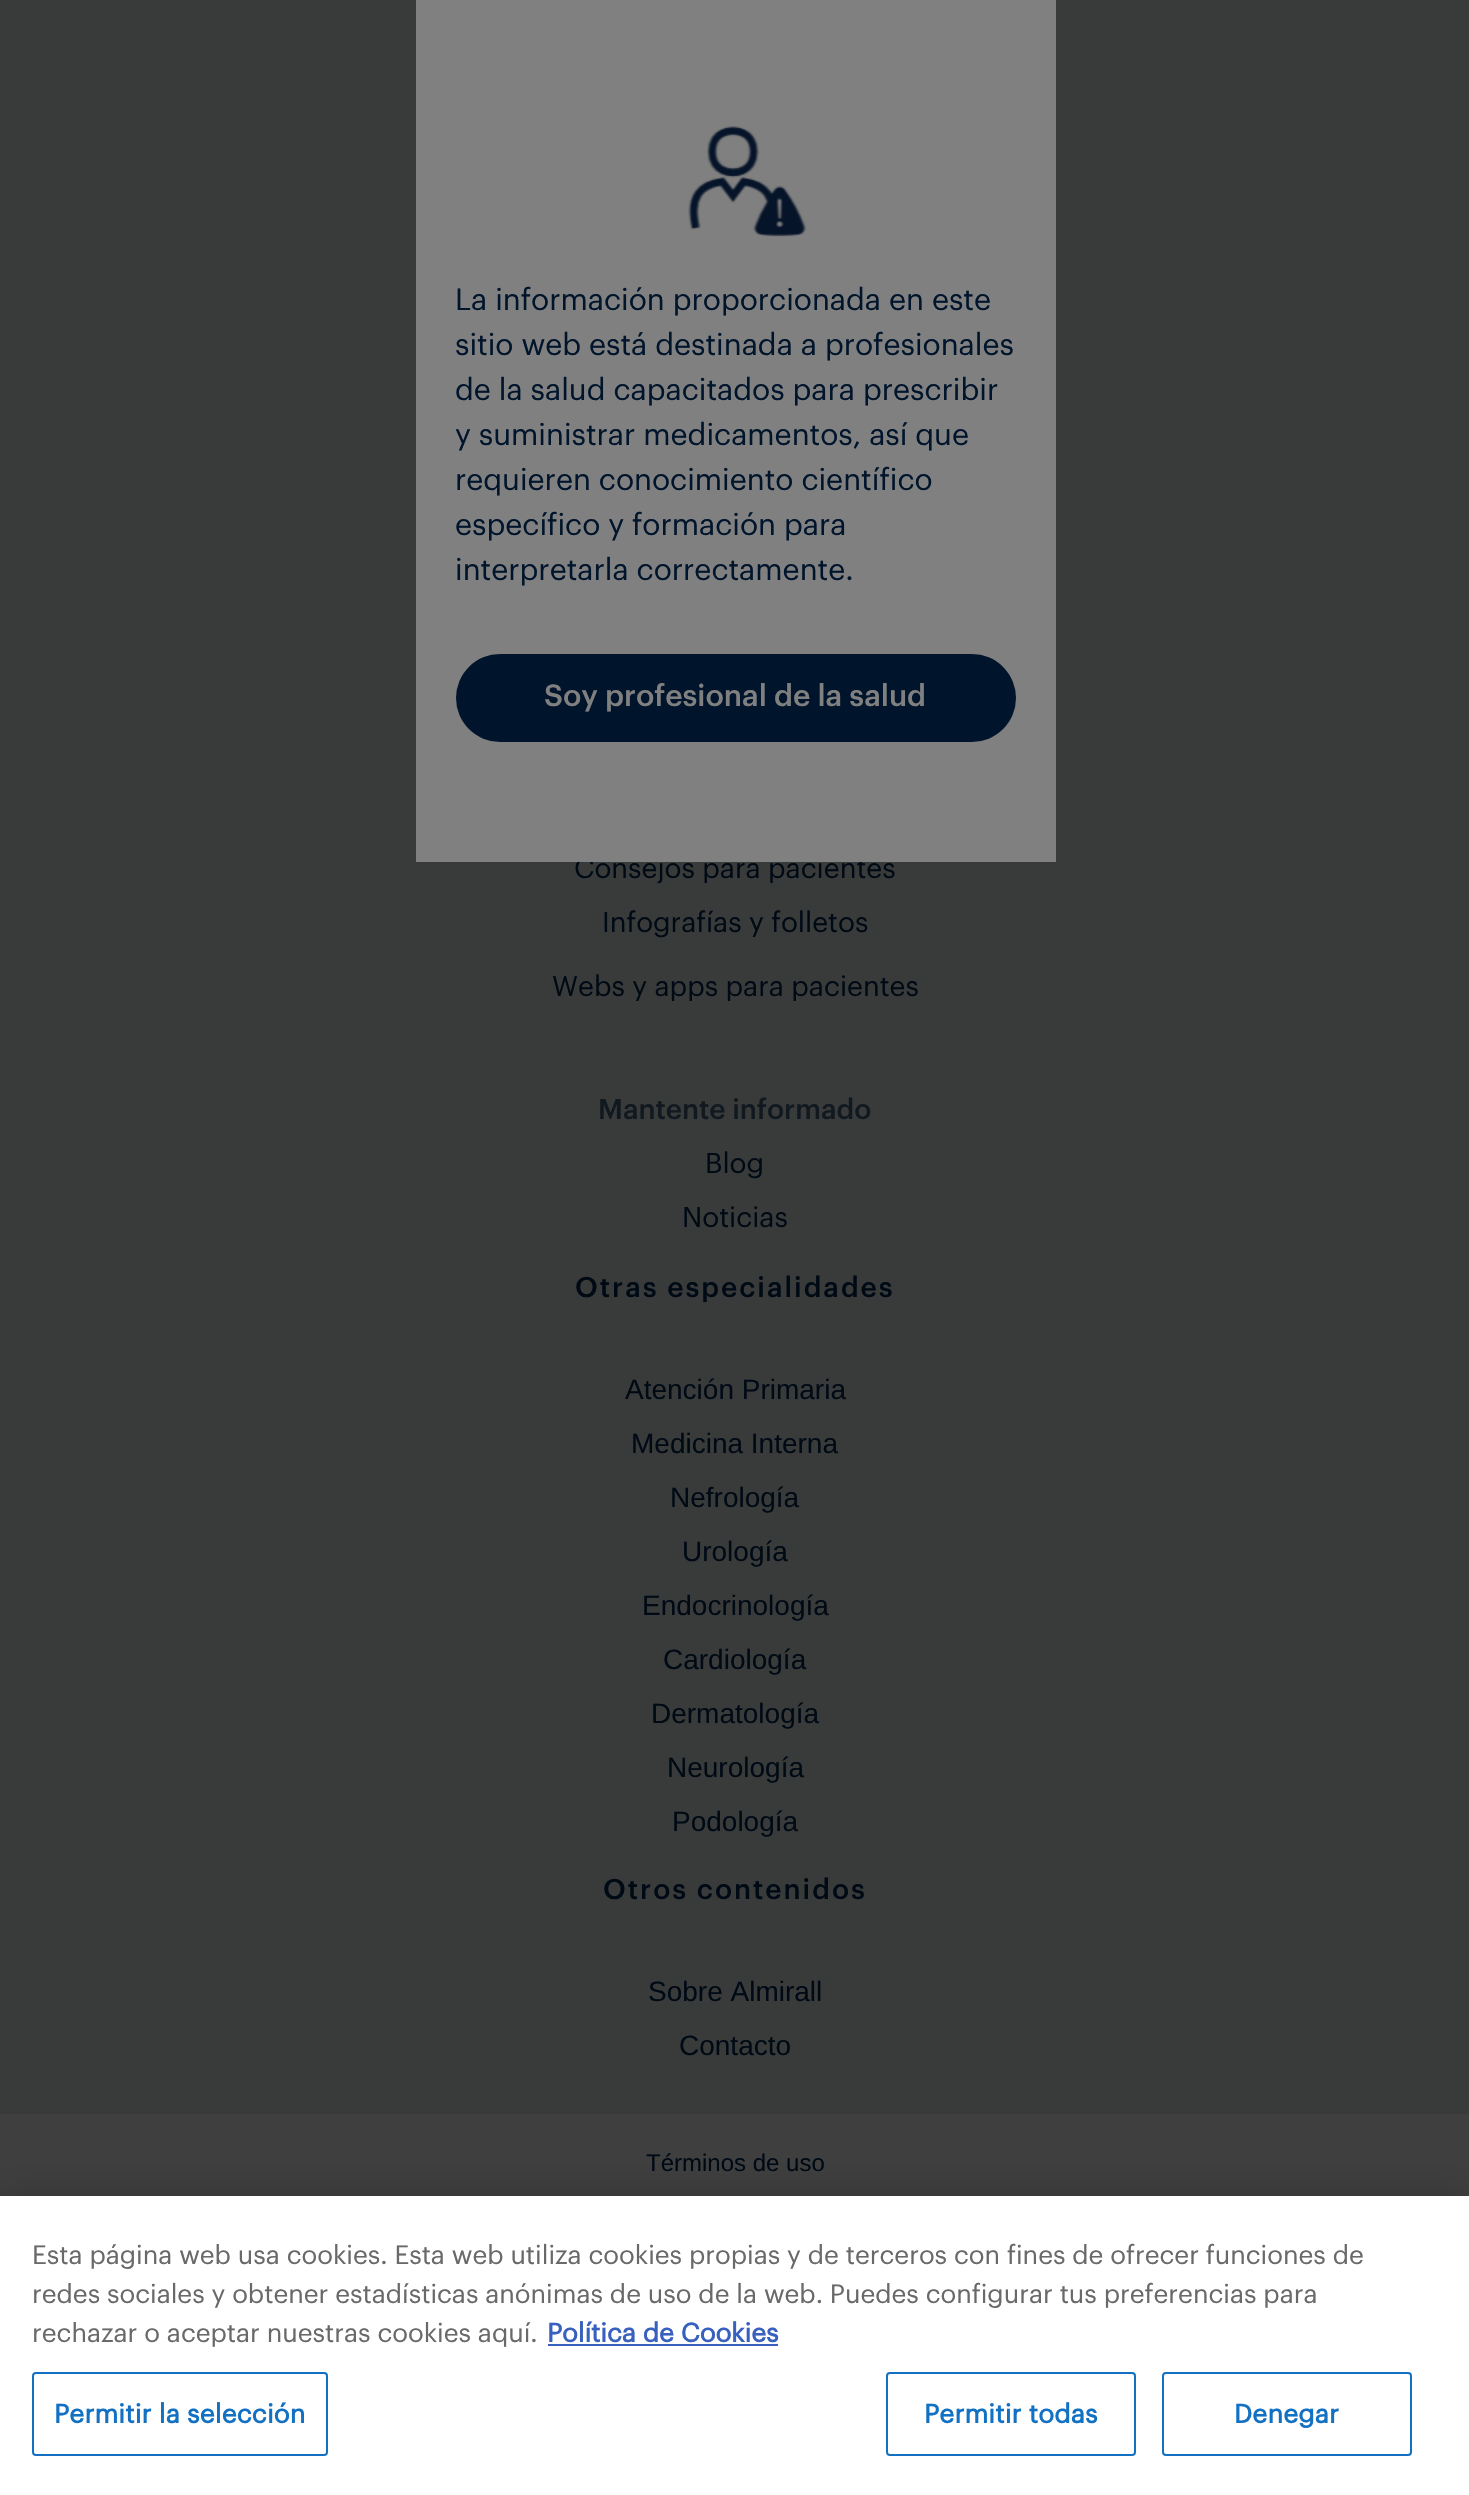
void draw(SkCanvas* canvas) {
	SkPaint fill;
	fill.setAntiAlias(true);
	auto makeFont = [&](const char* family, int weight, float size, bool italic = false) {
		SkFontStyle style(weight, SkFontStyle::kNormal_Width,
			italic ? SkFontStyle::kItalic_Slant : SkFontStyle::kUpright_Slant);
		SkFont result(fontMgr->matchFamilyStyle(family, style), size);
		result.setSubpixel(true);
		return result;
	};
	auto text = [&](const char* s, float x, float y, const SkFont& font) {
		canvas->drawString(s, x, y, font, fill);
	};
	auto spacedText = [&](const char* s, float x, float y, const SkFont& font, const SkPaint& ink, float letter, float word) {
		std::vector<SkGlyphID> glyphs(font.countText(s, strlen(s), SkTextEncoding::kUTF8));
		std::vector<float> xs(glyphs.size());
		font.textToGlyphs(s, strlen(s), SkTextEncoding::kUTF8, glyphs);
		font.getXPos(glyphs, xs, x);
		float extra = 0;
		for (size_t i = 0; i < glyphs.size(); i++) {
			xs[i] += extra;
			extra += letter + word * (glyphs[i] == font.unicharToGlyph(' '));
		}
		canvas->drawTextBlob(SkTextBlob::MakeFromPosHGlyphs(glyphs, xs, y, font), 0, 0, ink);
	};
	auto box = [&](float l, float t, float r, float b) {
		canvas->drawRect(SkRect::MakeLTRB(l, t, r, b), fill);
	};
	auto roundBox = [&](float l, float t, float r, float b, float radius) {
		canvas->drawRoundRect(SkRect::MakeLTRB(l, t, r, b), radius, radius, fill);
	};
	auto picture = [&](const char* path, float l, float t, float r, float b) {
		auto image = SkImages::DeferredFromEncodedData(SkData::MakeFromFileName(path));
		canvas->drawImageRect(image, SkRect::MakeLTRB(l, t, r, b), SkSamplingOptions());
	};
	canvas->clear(0xFF3F3F3F);
	fill.setColor(0xFF393A3A);
	box(0, 0, 1469, 2114);
	fill.setColor(0x33000000);
	fill.setMaskFilter(SkMaskFilter::MakeBlur(kNormal_SkBlurStyle, 18));
	canvas->drawRect(SkRect::MakeLTRB(0, 2196, 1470, 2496), fill);
	fill.setMaskFilter(nullptr);
	fill.setColor(0xFFFFFFFF);
	box(0, 2196, 1469, 2495);
	fill.setColor(0xFF3860BE);
	box(548, 2344, 778, 2346);
	fill.setStyle(SkPaint::kStroke_Style);
	fill.setStrokeWidth(2);
	fill.setColor(0xFF1371C3);
	canvas->drawRoundRect(SkRect::MakeLTRB(33, 2373, 327, 2455), 3, 3, fill);
	canvas->drawRoundRect(SkRect::MakeLTRB(887, 2373, 1135, 2455), 3, 3, fill);
	canvas->drawRoundRect(SkRect::MakeLTRB(1163, 2373, 1411, 2455), 3, 3, fill);
	auto font1 = makeFont("Graphik", 400, 28);
	fill.setStyle(SkPaint::kFill_Style);
	fill.setColor(0xFF000A15);
	text("Consejos para pacientes", 574, 878, font1);
	fill.setColor(0xFF808080);
	box(416, 0, 1056, 862);
	fill.setColor(0xFF00142B);
	roundBox(456, 654, 1016, 742, 44);
	auto font2 = makeFont("Graphik", 500, 30);
	fill.setColor(0xFF808080);
	text("Soy profesional de la salud", 544, 706, font2);
	auto font3 = makeFont("Graphik", 400, 30);
	fill.setColor(0xFF00142B);
	text("interpretarla correctamente.", 455, 580, font3);
	text("específico y formación para", 455, 535, font3);
	text("requieren conocimiento científico", 455, 490, font3);
	text("y suministrar medicamentos, así que", 455, 445, font3);
	text("de la salud capacitados para prescribir", 455, 400, font3);
	text("sitio web está destinada a profesionales", 455, 355, font3);
	text("La información proporcionada en este", 455, 310, font3);
	picture("image0.png", 688, 126, 807, 237);
	fill.setColor(0xFF000A15);
	text("Infografías y folletos", 602, 932, font1);
	text("Webs y apps para pacientes", 552, 996, font1);
	auto font4 = makeFont("Graphik", 500, 28);
	fill.setColor(0xFF111920);
	text("Mantente informado", 598, 1119, font4);
	fill.setColor(0xFF000A15);
	text("Blog", 705, 1173, font1);
	text("Noticias", 682, 1227, font1);
	spacedText("Otras especialidades", 575, 1297, font4, fill, 2, 0);
	auto font5 = makeFont("Liberation Sans", 400, 28);
	text("Atención Primaria", 625, 1399, font5);
	text("Medicina Interna", 631, 1453, font5);
	text("Nefrología", 670, 1507, font5);
	text("Urología", 682, 1561, font5);
	text("Endocrinología", 642, 1615, font5);
	text("Cardiología", 663, 1669, font5);
	text("Dermatología", 651, 1723, font5);
	text("Neurología", 667, 1777, font5);
	text("Podología", 672, 1831, font5);
	spacedText("Otros contenidos", 603, 1899, font4, fill, 2, 0);
	text("Sobre Almirall", 648, 2001, font5);
	text("Contacto", 679, 2055, font5);
	auto font6 = makeFont("Liberation Sans", 400, 24);
	text("Términos de uso", 646, 2171, font6);
	auto font7 = makeFont("Graphik", 400, 26.02f);
	fill.setColor(0xFF696969);
	text("Esta página web usa cookies. Esta web utiliza cookies propias y de terceros con fines de ofrecer funciones de", 32, 2264, font7);
	text("redes sociales y obtener estadísticas anónimas de uso de la web. Puedes configurar tus preferencias para", 32, 2303, font7);
	text("rechazar o aceptar nuestras cookies aquí.", 32, 2342, font7);
	auto font8 = makeFont("Graphik", 700, 26.02f);
	fill.setColor(0xFF3860BE);
	text("Política de Cookies", 547, 2342, font8);
	fill.setColor(0xFF1371C3);
	spacedText("Permitir la selección", 54, 2423, font8, fill, 0.25f, 0);
	spacedText("Permitir todas", 924, 2423, font8, fill, 0.25f, 0);
	spacedText("Denegar", 1234, 2423, font8, fill, 0.25f, 0);
}
